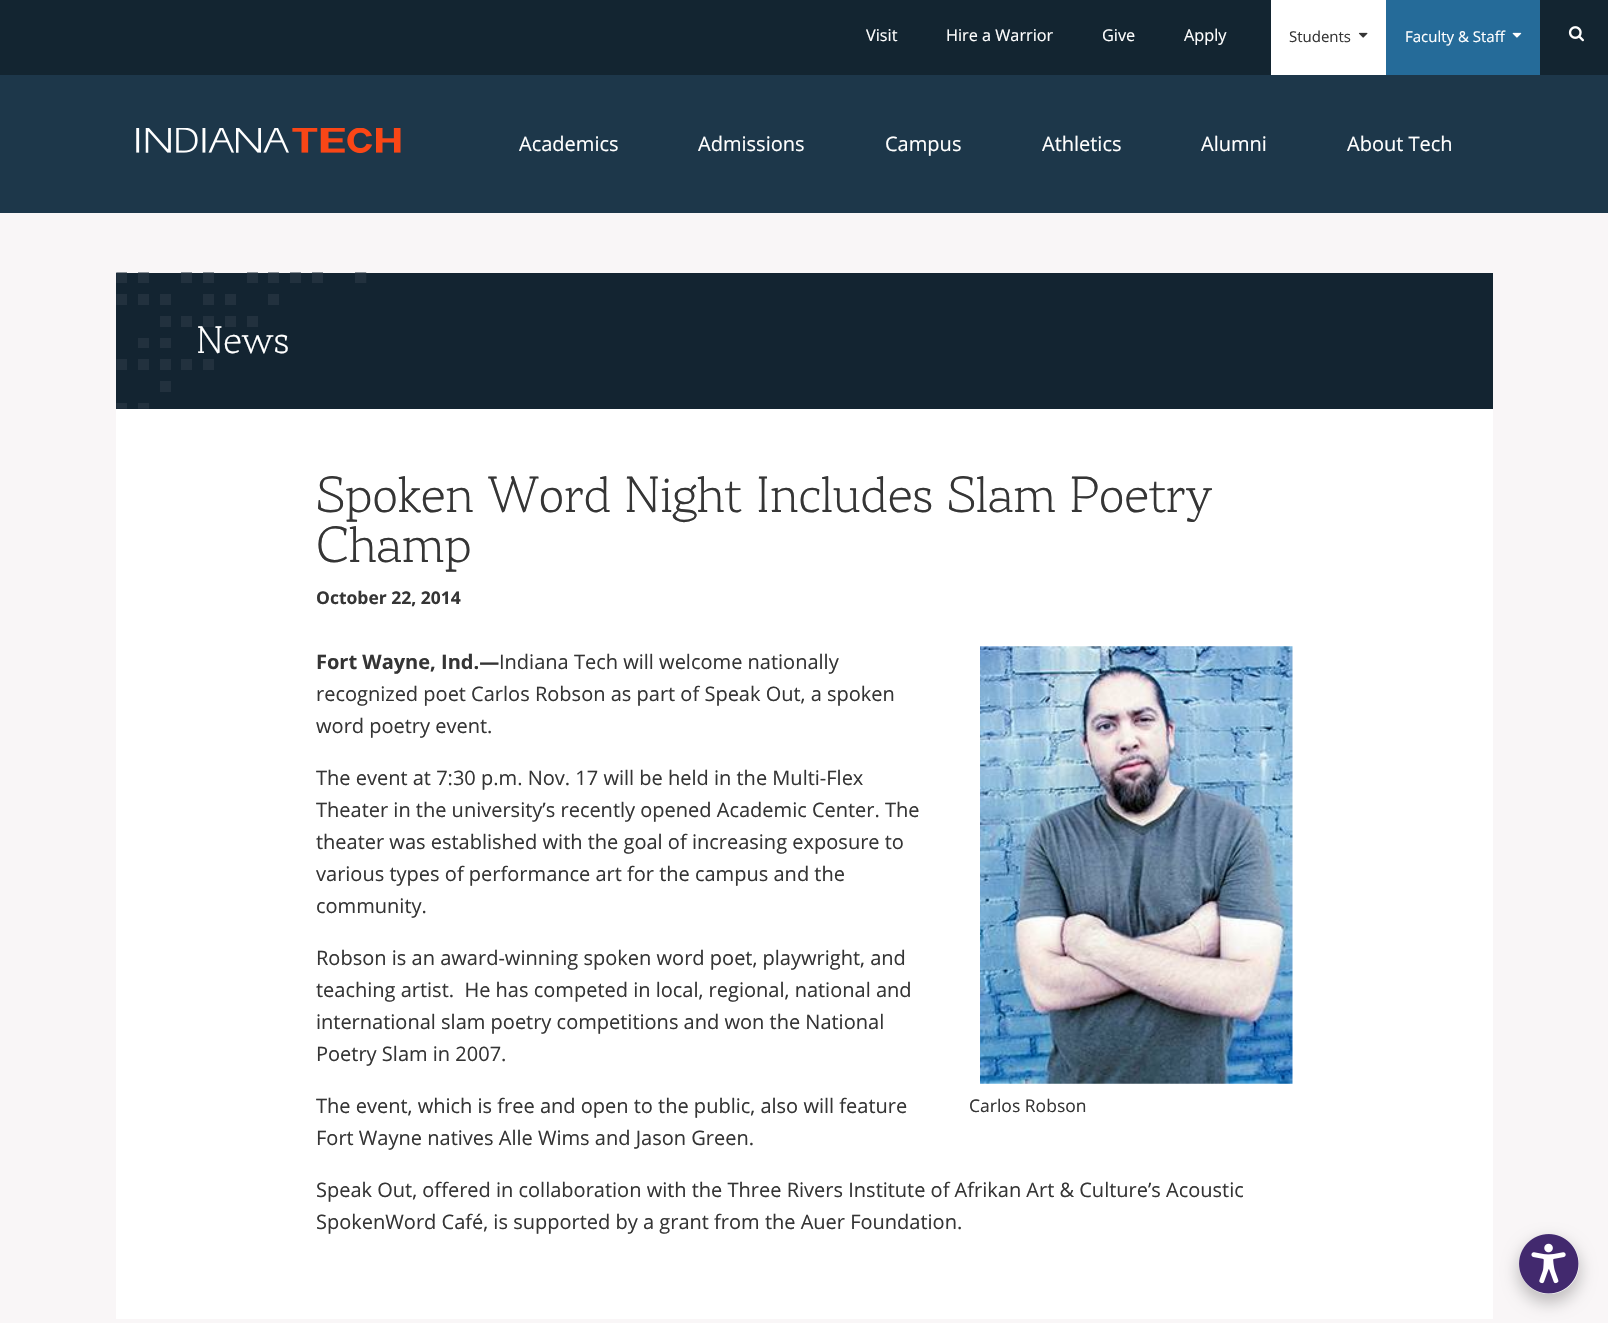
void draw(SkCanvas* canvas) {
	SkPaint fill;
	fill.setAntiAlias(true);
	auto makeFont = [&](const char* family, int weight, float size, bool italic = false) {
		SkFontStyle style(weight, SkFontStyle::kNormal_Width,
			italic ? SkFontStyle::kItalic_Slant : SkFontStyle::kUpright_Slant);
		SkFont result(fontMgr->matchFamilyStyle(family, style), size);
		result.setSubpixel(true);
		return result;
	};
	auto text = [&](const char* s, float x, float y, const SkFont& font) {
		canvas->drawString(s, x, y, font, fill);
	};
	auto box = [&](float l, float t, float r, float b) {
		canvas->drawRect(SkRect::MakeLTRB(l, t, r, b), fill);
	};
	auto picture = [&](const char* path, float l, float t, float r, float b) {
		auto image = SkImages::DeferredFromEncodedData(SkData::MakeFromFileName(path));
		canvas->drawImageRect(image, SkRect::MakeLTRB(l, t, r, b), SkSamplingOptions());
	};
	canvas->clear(0xFF132531);
	fill.setColor(0xFFFFFFFF);
	box(1271, 0, 1386, 75);
	picture("image0.png", 1358, 32, 1368, 38);
	fill.setColor(0xFF256B99);
	box(1386, 0, 1540, 75);
	picture("image1.png", 1512, 32, 1522, 38);
	picture("image2.png", 1568, 26, 1584, 42);
	fill.setColor(0xFF1D374A);
	box(0, 75, 1608, 213);
	picture("image3.png", 136, 128, 401, 154);
	fill.setColor(0xFFF9F6F7);
	box(0, 213, 1608, 1323);
	fill.setColor(0xFF132431);
	box(116, 273, 1493, 409);
	picture("image4.png", 116, 272, 367, 409);
	fill.setColor(0xFFFFFFFF);
	box(116, 409, 1493, 1319);
	picture("image5.png", 980, 646, 1293, 1084);
	fill.setColor(0x3B000000);
	fill.setMaskFilter(SkMaskFilter::MakeBlur(kNormal_SkBlurStyle, 8));
	canvas->drawRoundRect(SkRect::MakeLTRB(1518, 1240, 1580, 1303), 31, 31, fill);
	fill.setMaskFilter(nullptr);
	picture("image6.png", 1519, 1234, 1579, 1294);
	auto font1 = makeFont("Open Sans", 400, 16.25f);
	fill.setColor(0xFFFFFFFF);
	text("Visit", 866, 41, font1);
	text("Hire a Warrior", 946, 41, font1);
	text("Give", 1102, 41, font1);
	text("Apply", 1184, 41, font1);
	auto font2 = makeFont("Open Sans", 400, 15);
	fill.setColor(0xFF353535);
	text("Students", 1289, 42, font2);
	fill.setColor(0xFFFFFFFF);
	text("Faculty & Staff", 1405, 42, font2);
	auto font3 = makeFont("Open Sans", 400, 20);
	text("Academics", 519, 151, font3);
	text("Admissions", 698, 151, font3);
	text("Campus", 885, 151, font3);
	text("Athletics", 1042, 151, font3);
	text("Alumni", 1201, 151, font3);
	text("About Tech", 1347, 151, font3);
	auto font4 = makeFont("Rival", 200, 37.5f);
	text("News", 196, 353, font4);
	auto font5 = makeFont("Rival", 200, 50);
	fill.setColor(0xFF353535);
	text("Spoken", 316, 512, font5);
	text("Word", 488, 512, font5);
	text("Night", 624, 512, font5);
	text("Includes", 756, 512, font5);
	text("Slam", 947, 512, font5);
	text("Poetry", 1069, 512, font5);
	text("Champ", 316, 562, font5);
	auto font6 = makeFont("Open Sans", 700, 17.5f);
	text("October 22, 2014", 316, 604, font6);
	auto font7 = makeFont("Open Sans", 700, 20);
	text("Fort Wayne, Ind.—", 316, 669, font7);
	text("Indiana Tech will welcome nationally", 499, 669, font3);
	text("recognized poet Carlos Robson as part of Speak Out, a spoken", 316, 701, font3);
	text("word poetry event.", 316, 733, font3);
	text("The event at 7:30 p.m. Nov. 17 will be held in the Multi-Flex", 316, 785, font3);
	text("Theater in the university’s recently opened Academic Center. The", 316, 817, font3);
	text("theater was established with the goal of increasing exposure to", 316, 849, font3);
	text("various types of performance art for the campus and the", 316, 881, font3);
	text("community.", 316, 913, font3);
	text("Robson is an award-winning spoken word poet, playwright, and", 316, 965, font3);
	text("teaching artist.  He has competed in local, regional, national and", 316, 997, font3);
	text("international slam poetry competitions and won the National", 316, 1029, font3);
	text("Poetry Slam in 2007.", 316, 1061, font3);
	text("The event, which is free and open to the public, also will feature", 316, 1113, font3);
	text("Fort Wayne natives Alle Wims and Jason Green.", 316, 1145, font3);
	auto font8 = makeFont("Open Sans", 400, 17.5f);
	text("Carlos Robson", 969, 1112, font8);
	text("Speak Out, offered in collaboration with the Three Rivers Institute of Afrikan Art & Culture’s Acoustic", 316, 1197, font3);
	text("SpokenWord Café, is supported by a grant from the Auer Foundation.", 316, 1229, font3);
}
